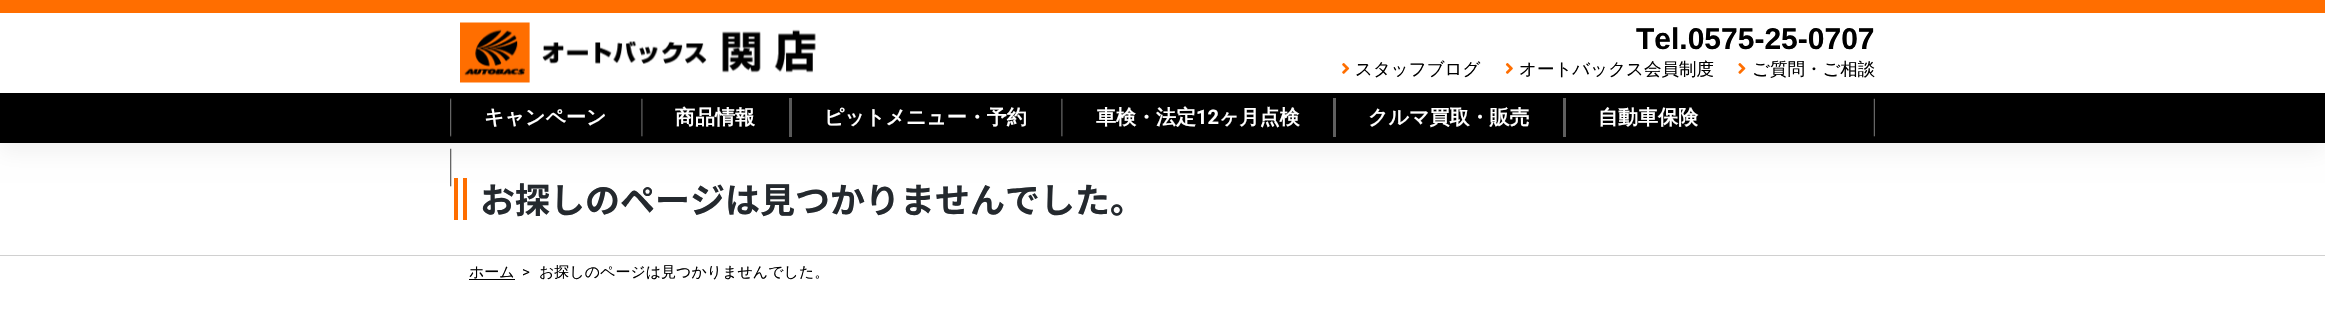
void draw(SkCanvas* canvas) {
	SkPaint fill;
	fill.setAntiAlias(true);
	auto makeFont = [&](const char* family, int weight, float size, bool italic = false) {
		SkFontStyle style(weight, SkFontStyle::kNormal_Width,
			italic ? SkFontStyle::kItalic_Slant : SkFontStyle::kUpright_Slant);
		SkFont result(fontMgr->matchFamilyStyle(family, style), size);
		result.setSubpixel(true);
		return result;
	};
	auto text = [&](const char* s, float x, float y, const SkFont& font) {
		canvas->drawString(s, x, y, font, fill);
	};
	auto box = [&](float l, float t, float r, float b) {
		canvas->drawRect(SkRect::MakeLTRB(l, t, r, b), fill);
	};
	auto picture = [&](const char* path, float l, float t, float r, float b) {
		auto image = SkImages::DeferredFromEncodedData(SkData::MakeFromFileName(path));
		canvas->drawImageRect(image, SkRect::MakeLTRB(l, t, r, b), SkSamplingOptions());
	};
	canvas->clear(0xFFFFFFFF);
	fill.setColor(0xFFFF6E00);
	box(454, 178, 458, 220);
	box(463, 178, 467, 220);
	fill.setColor(0x0D000000);
	fill.setMaskFilter(SkMaskFilter::MakeBlur(kNormal_SkBlurStyle, 10));
	canvas->drawRect(SkRect::MakeLTRB(0, 10, 2325, 153), fill);
	fill.setMaskFilter(nullptr);
	fill.setColor(0xFFFFFFFF);
	box(0, 13, 2325, 93);
	fill.setColor(0xFFFF6E00);
	box(0, 0, 2325, 13);
	picture("image0.png", 460, 22, 816, 83);
	picture("image1.png", 1342, 63, 1350, 74);
	picture("image2.png", 1505, 63, 1513, 74);
	picture("image3.png", 1738, 63, 1746, 74);
	fill.setColor(0xFF000000);
	box(0, 93, 2325, 143);
	picture("image4.png", 1873, 98, 1875, 137);
	picture("image5.png", 450, 98, 452, 137);
	picture("image6.png", 641, 98, 643, 137);
	fill.setColor(0xFF595959);
	box(789, 98, 792, 137);
	picture("image7.png", 1061, 98, 1063, 137);
	fill.setColor(0xFF5F5F5F);
	box(1333, 98, 1336, 137);
	box(1563, 98, 1566, 137);
	picture("image8.png", 450, 148, 452, 187);
	fill.setColor(0xFFD0D0D0);
	box(0, 255, 2325, 256);
	fill.setColor(0xFF000000);
	box(469, 279, 515, 280);
	auto font1 = makeFont("Liberation Sans", 700, 30);
	text("Tel.0575-25-0707", 1636, 49, font1);
	auto font2 = makeFont("WenQuanYi Zen Hei", 500, 17.5f);
	text("スタッフブログ", 1355, 75, font2);
	text("オートバックス会員制度", 1519, 75, font2);
	text("ご質問・ご相談", 1752, 75, font2);
	auto font3 = makeFont("WenQuanYi Zen Hei", 700, 20);
	fill.setColor(0xFFFFFFFF);
	text("キャンペーン", 484, 124, font3);
	text("商品情報", 675, 124, font3);
	text("ピットメニュー・予約", 824, 124, font3);
	text("車検・法定", 1096, 124, font3);
	auto font4 = makeFont("Roboto", 700, 20);
	text("12", 1196, 124, font4);
	text("ヶ月点検", 1219, 124, font3);
	text("クルマ買取・販売", 1368, 124, font3);
	text("自動車保険", 1598, 124, font3);
	auto font5 = makeFont("Noto Sans JP", 700, 35);
	fill.setColor(0xFF24292E);
	text("お探しのページは見つかりませんでした。", 480, 213, font5);
	auto font6 = makeFont("WenQuanYi Zen Hei", 500, 15);
	fill.setColor(0xFF000000);
	text("ホーム", 469, 277, font6);
	auto font7 = makeFont("Roboto", 400, 15);
	text(">", 522, 277, font7);
	text("お探しのページは見つかりませんでした。", 539, 277, font6);
}
